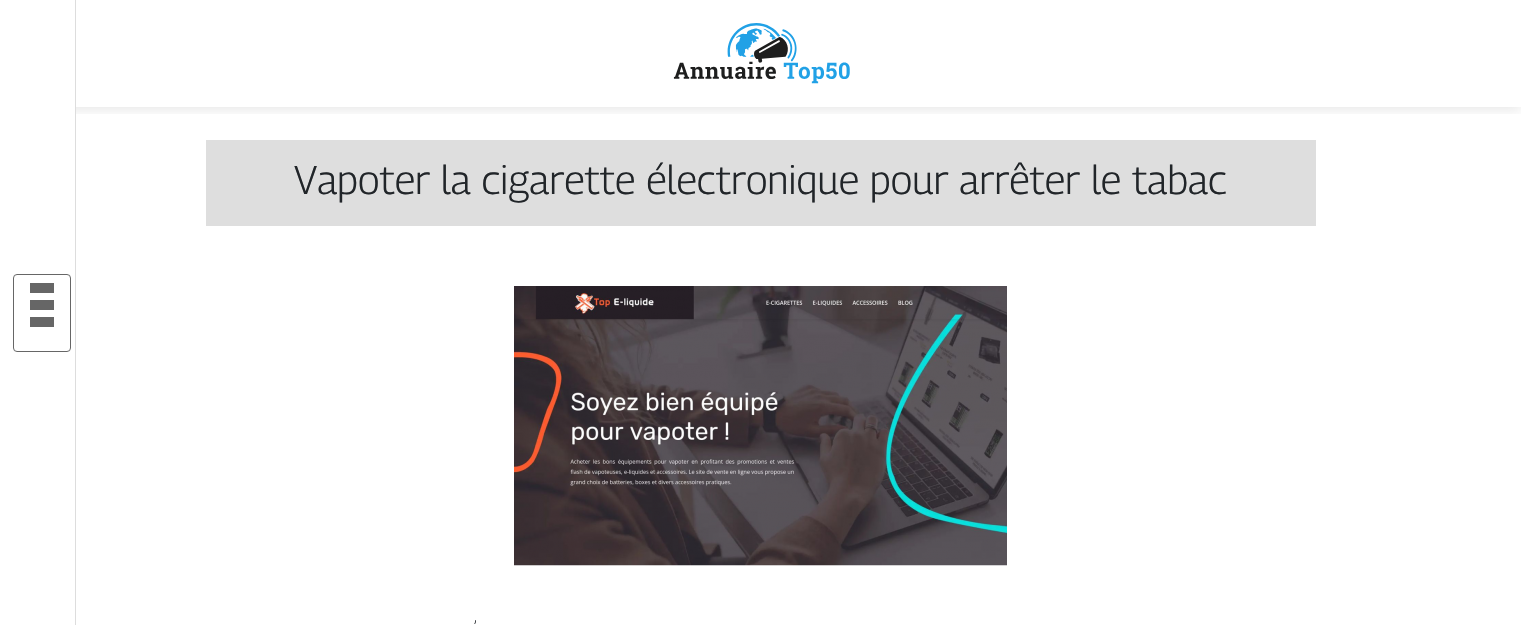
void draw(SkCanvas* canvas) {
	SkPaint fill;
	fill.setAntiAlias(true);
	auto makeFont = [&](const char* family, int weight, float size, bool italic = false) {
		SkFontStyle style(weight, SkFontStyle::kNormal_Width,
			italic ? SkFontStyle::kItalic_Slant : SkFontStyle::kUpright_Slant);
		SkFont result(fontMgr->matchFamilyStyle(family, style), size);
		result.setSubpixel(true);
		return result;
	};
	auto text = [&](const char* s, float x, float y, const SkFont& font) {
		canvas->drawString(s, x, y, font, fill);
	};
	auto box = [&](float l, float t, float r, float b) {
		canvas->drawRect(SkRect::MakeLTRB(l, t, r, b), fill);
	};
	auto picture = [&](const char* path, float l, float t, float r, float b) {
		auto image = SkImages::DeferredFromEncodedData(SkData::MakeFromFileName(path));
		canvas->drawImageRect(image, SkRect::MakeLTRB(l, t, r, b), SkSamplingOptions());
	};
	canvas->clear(0xFFFFFFFF);
	canvas->save();
	canvas->clipRect(SkRect::MakeLTRB(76, 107, 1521, 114));
	fill.setColor(0x1A000000);
	fill.setMaskFilter(SkMaskFilter::MakeBlur(kNormal_SkBlurStyle, 6.5f));
	canvas->drawRect(SkRect::MakeLTRB(0, 2, 1521, 109), fill);
	fill.setMaskFilter(nullptr);
	canvas->restore();
	fill.setColor(0xFFFFFFFF);
	box(0, 107, 75, 117);
	fill.setColor(0xFFDDDDDD);
	box(75, 0, 76, 625);
	fill.setStyle(SkPaint::kStroke_Style);
	fill.setStrokeWidth(1);
	fill.setColor(0xFF666666);
	canvas->drawRoundRect(SkRect::MakeLTRB(13.5f, 274.5f, 70.5f, 351.5f), 3.5f, 3.5f, fill);
	fill.setStyle(SkPaint::kFill_Style);
	box(30, 283, 54, 293);
	box(30, 300, 54, 310);
	box(30, 317, 54, 327);
	picture("image0.png", 673, 23, 850, 84);
	fill.setColor(0xFFDEDEDE);
	box(206, 140, 1316, 226);
	picture("image1.png", 514, 286, 1007, 566);
	auto font1 = makeFont("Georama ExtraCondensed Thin", 100, 40);
	fill.setColor(0xFF212529);
	text("Vapoter la cigarette électronique pour arrêter le tabac", 294, 194, font1);
	auto font2 = makeFont("Georama ExtraCondensed Thin", 100, 14);
	text("’", 474, 630, font2);
}
